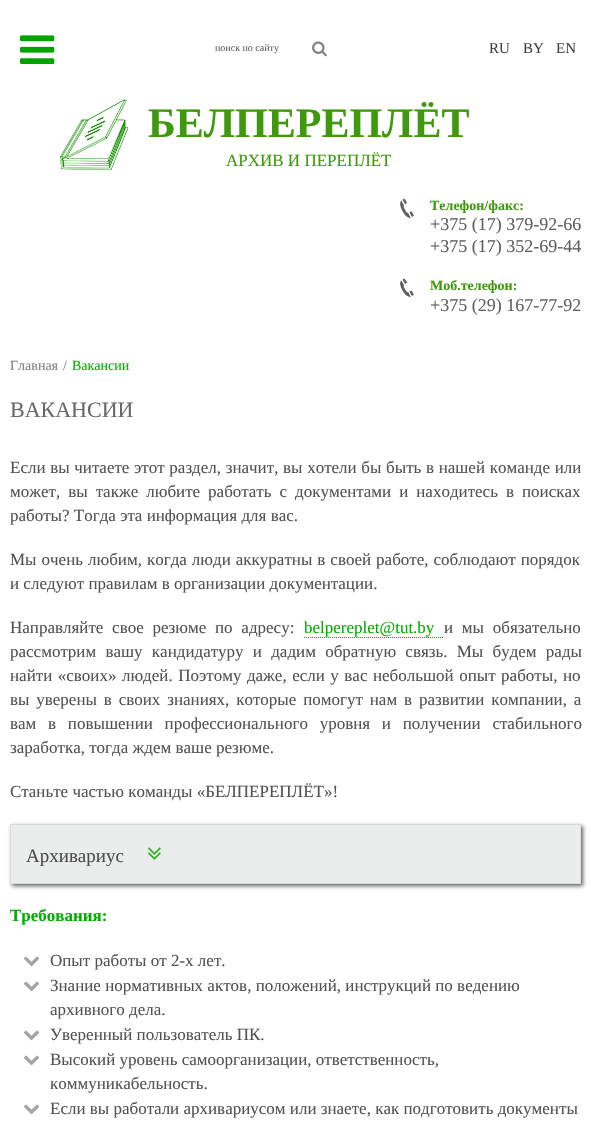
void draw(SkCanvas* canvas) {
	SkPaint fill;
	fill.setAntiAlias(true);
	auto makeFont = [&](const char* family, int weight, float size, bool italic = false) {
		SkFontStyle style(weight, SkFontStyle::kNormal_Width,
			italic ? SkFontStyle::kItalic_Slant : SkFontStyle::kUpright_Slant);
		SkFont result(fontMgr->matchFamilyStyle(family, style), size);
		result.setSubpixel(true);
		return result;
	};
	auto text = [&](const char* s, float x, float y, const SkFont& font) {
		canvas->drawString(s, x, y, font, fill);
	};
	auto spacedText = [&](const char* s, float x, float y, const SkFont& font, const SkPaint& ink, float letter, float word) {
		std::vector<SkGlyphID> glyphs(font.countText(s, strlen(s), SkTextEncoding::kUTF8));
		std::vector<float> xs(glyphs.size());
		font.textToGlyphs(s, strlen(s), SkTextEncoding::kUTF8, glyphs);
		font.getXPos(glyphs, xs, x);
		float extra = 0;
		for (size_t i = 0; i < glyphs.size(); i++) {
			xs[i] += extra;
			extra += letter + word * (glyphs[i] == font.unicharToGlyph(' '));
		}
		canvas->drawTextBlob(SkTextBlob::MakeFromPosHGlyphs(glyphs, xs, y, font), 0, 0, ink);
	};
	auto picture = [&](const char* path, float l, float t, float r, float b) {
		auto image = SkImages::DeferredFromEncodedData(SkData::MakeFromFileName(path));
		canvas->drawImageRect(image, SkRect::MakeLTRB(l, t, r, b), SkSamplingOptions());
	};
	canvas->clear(0xFFFFFFFF);
	picture("image0.png", 20, 35, 55, 64);
	picture("image1.png", 312, 41, 327, 57);
	picture("image2.png", 60, 99, 128, 170);
	picture("image3.png", 400, 198, 414, 218);
	picture("image4.png", 400, 278, 414, 297);
	fill.setStyle(SkPaint::kStroke_Style);
	fill.setStrokeWidth(1);
	fill.setColor(0xFF01AE01);
	fill.setPathEffect(SkDashPathEffect::Make({{1, 1}}, 0));
	canvas->drawPath(SkPathBuilder().moveTo(304, 637.5f).lineTo(444, 637.5f).detach(), fill);
	fill.setPathEffect(nullptr);
	fill.setStyle(SkPaint::kFill_Style);
	fill.setColor(0xFF616161);
	fill.setMaskFilter(SkMaskFilter::MakeBlur(kNormal_SkBlurStyle, 2));
	canvas->drawRect(SkRect::MakeLTRB(12, 826, 583, 886), fill);
	fill.setMaskFilter(nullptr);
	fill.setColor(0xFFEBECEC);
	canvas->drawRect(SkRect::MakeLTRB(10.5f, 824.5f, 580.5f, 883.5f), fill);
	fill.setStyle(SkPaint::kStroke_Style);
	fill.setColor(0xFFD6DBDF);
	canvas->drawRect(SkRect::MakeLTRB(10.5f, 824.5f, 580.5f, 883.5f), fill);
	picture("image5.png", 148, 847, 161, 860);
	picture("image6.png", 23, 956, 40, 967);
	picture("image6.png", 23, 981, 40, 992);
	picture("image6.png", 23, 1030, 40, 1041);
	picture("image6.png", 23, 1055, 40, 1066);
	picture("image6.png", 23, 1104, 40, 1115);
	auto font1 = makeFont("Liberation Serif", 400, 10);
	fill.setStyle(SkPaint::kFill_Style);
	fill.setColor(0xFF605F5F);
	text("поиск по сайту", 215, 51, font1);
	auto font2 = makeFont("Liberation Serif", 400, 15);
	fill.setColor(0xFF414040);
	text("RU", 489, 53, font2);
	text("BY", 523, 53, font2);
	text("EN", 556, 53, font2);
	auto font3 = makeFont("Liberation Serif", 700, 42);
	fill.setColor(0xFF3F990D);
	text("БЕЛПЕРЕПЛЁТ", 148, 137, font3);
	auto font4 = makeFont("Liberation Serif", 400, 17);
	text("АРХИВ И ПЕРЕПЛЁТ", 226, 166, font4);
	auto font5 = makeFont("Liberation Serif", 700, 14);
	text("Телефон/факс:", 430, 210, font5);
	auto font6 = makeFont("Liberation Serif", 400, 18);
	fill.setColor(0xFF605F5F);
	text("+375 (17) 379-92-66", 430, 230, font6);
	text("+375 (17) 352-69-44", 430, 252, font6);
	fill.setColor(0xFF3F990D);
	text("Моб.телефон:", 430, 290, font5);
	fill.setColor(0xFF605F5F);
	text("+375 (29) 167-77-92", 430, 311, font6);
	auto font7 = makeFont("Liberation Serif", 400, 14);
	fill.setColor(0xFF818080);
	text("Главная", 10, 370, font7);
	text("/", 63, 370, font7);
	fill.setColor(0xFF01AE01);
	text("Вакансии", 72, 370, font7);
	auto font8 = makeFont("Liberation Serif", 400, 22);
	fill.setColor(0xFF696969);
	text("ВАКАНСИИ", 10, 417, font8);
	fill.setColor(0xFF535252);
	spacedText("Если вы читаете этот раздел, значит, вы хотели бы быть в нашей команде или", 10, 473, font4, fill, 0, 0.4f);
	spacedText("может, вы также любите работать с документами и находитесь в поисках", 10, 497, font4, fill, 0, 3.75f);
	text("работы? Тогда эта информация для вас.", 10, 521, font4);
	spacedText("Мы очень любим, когда люди аккуратны в своей работе, соблюдают порядок", 10, 565, font4, fill, 0, 0.75f);
	text("и следуют правилам в организации документации.", 10, 589, font4);
	spacedText("Направляйте свое резюме по адресу:", 10, 633, font4, fill, 0, 4.5f);
	fill.setColor(0xFF01AE01);
	text("belpereplet@tut.by", 304, 633, font4);
	fill.setColor(0xFF535252);
	spacedText("и мы обязательно", 444, 633, font4, fill, 0, 4.5f);
	spacedText("рассмотрим вашу кандидатуру и дадим обратную связь. Мы будем рады", 10, 657, font4, fill, 0, 5);
	spacedText("найти «своих» людей. Поэтому даже, если у вас небольшой опыт работы, но", 10, 681, font4, fill, 0, 1.25f);
	spacedText("вы уверены в своих знаниях, которые помогут нам в развитии компании, а", 10, 705, font4, fill, 0, 2.6f);
	spacedText("вам в повышении профессионального уровня и получении стабильного", 10, 729, font4, fill, 0, 7.5f);
	text("заработка, тогда ждем ваше резюме.", 10, 753, font4);
	text("Станьте частью команды «БЕЛПЕРЕПЛЁТ»!", 10, 797, font4);
	auto font9 = makeFont("Liberation Serif", 400, 19);
	fill.setColor(0xFF4D4D4D);
	text("Архивариус", 26, 862, font9);
	auto font10 = makeFont("Liberation Serif", 700, 17);
	fill.setColor(0xFF01AE01);
	text("Требования:", 10, 921, font10);
	fill.setColor(0xFF535252);
	text("Опыт работы от 2-х лет.", 50, 966, font4);
	text("Знание нормативных актов, положений, инструкций по ведению", 50, 991, font4);
	text("архивного дела.", 50, 1015, font4);
	text("Уверенный пользователь ПК.", 50, 1040, font4);
	text("Высокий уровень самоорганизации, ответственность,", 50, 1065, font4);
	text("коммуникабельность.", 50, 1089, font4);
	text("Если вы работали архивариусом или знаете, как подготовить документы", 50, 1114, font4);
}
